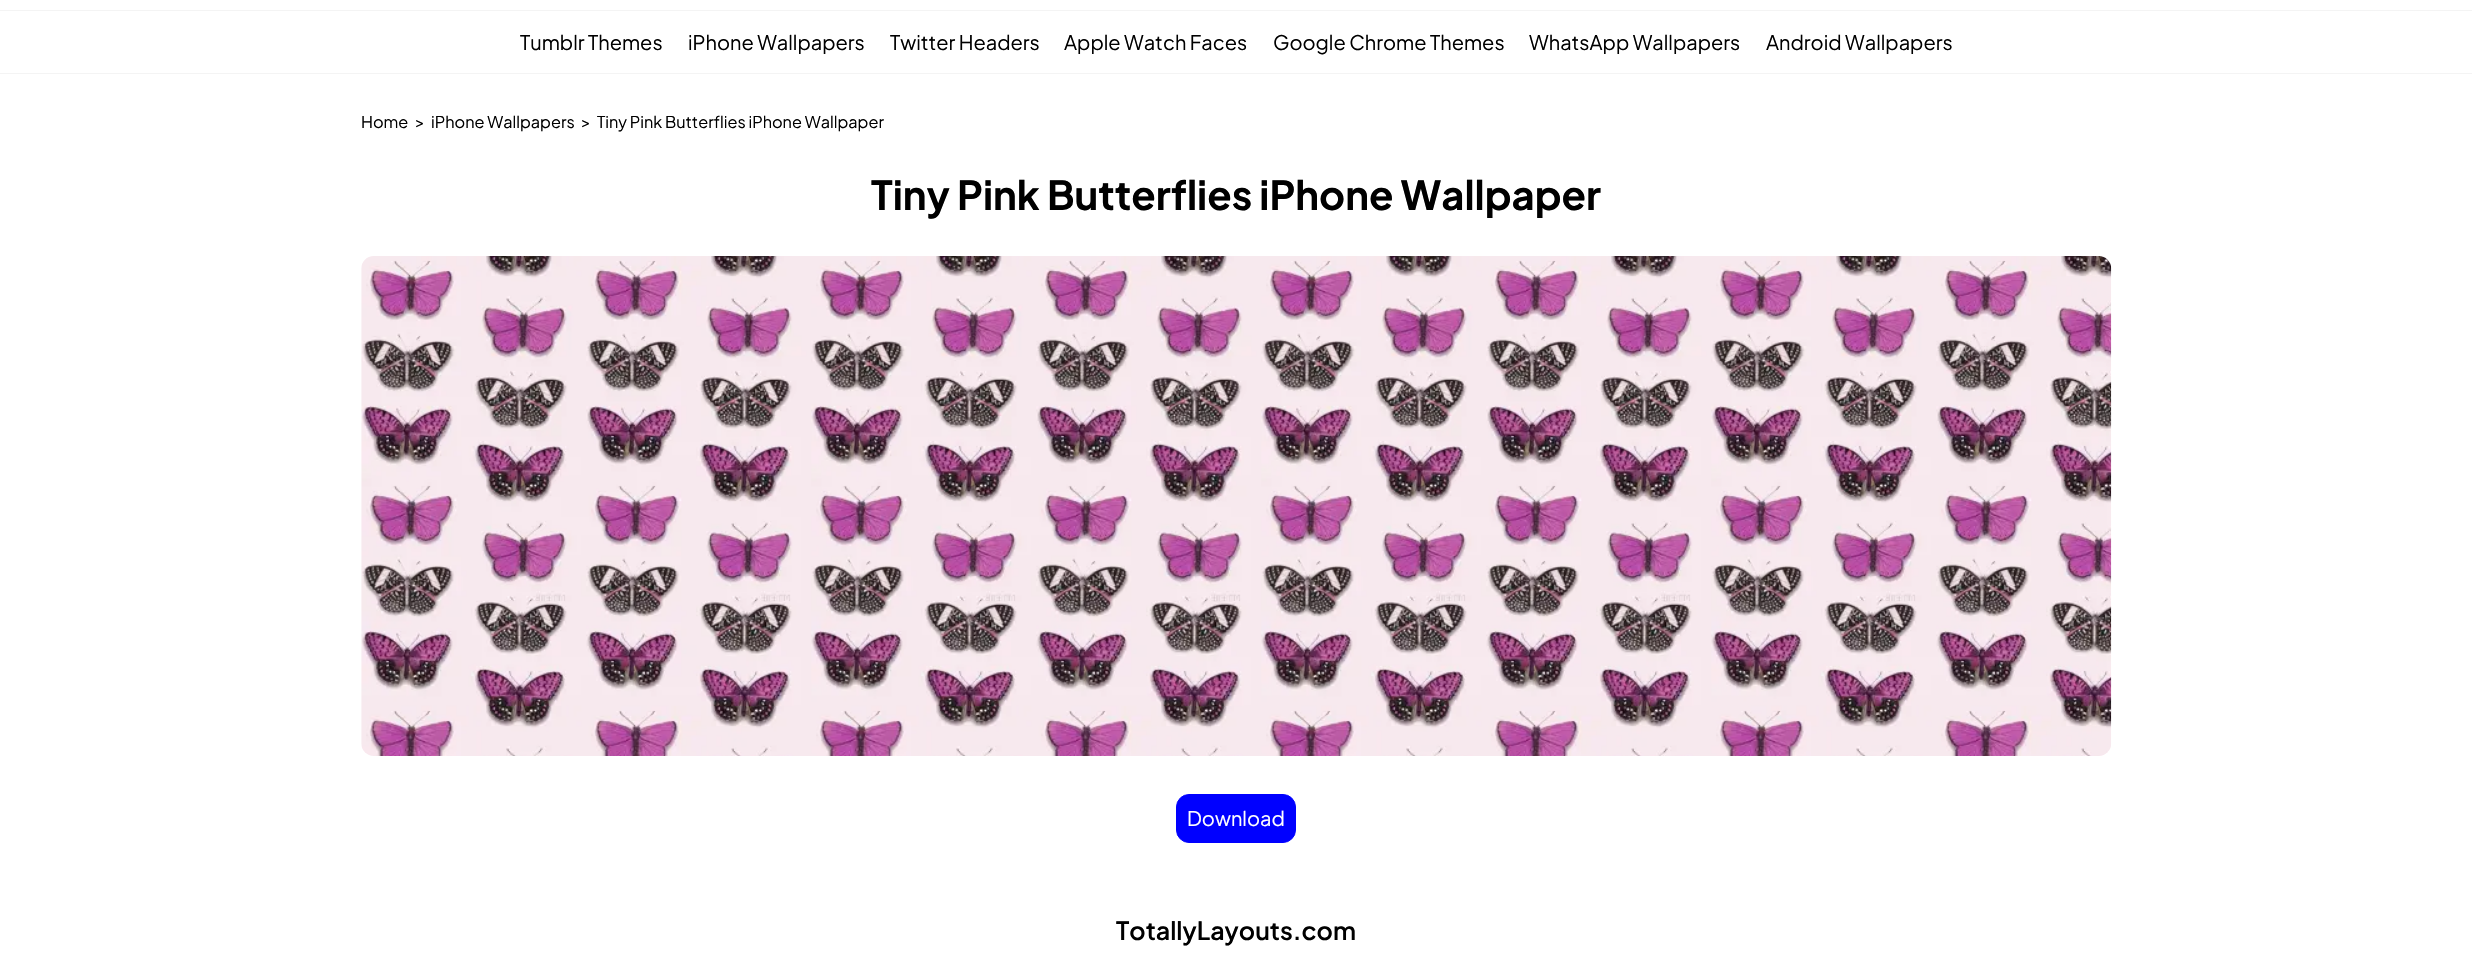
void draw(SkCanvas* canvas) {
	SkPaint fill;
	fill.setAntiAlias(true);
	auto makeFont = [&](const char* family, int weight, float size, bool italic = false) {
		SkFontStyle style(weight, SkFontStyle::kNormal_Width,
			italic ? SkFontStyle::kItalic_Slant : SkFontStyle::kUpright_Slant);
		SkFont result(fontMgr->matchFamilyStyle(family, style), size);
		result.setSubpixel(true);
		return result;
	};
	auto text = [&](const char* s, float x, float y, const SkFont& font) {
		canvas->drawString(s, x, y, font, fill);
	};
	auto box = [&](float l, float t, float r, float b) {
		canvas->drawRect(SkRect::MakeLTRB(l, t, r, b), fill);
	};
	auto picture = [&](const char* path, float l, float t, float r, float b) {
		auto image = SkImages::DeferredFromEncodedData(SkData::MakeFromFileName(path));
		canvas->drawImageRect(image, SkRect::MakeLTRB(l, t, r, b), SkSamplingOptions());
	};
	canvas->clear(0xFFFFFFFF);
	fill.setColor(0xFFF4F4F4);
	box(0, 10, 2472, 11);
	box(0, 73, 2472, 74);
	picture("image0.png", 361, 256, 2112, 756);
	fill.setColor(0xFF0000FF);
	canvas->drawRoundRect(SkRect::MakeLTRB(1176.5f, 794.5f, 1295.5f, 842.5f), 12.5f, 12.5f, fill);
	fill.setStyle(SkPaint::kStroke_Style);
	fill.setStrokeWidth(1);
	canvas->drawRoundRect(SkRect::MakeLTRB(1176.5f, 794.5f, 1295.5f, 842.5f), 12.5f, 12.5f, fill);
	auto font1 = makeFont("Plus Jakarta Sans", 400, 20);
	fill.setStyle(SkPaint::kFill_Style);
	fill.setColor(0xFF000000);
	text("Tumblr Themes", 520, 50, font1);
	text("iPhone Wallpapers", 688, 50, font1);
	text("Twitter Headers", 890, 50, font1);
	text("Apple Watch Faces", 1064, 50, font1);
	text("Google Chrome Themes", 1273, 50, font1);
	text("WhatsApp Wallpapers", 1529, 50, font1);
	text("Android Wallpapers", 1766, 50, font1);
	auto font2 = makeFont("Plus Jakarta Sans", 400, 16.25f);
	text("Home", 361, 128, font2);
	text(">", 415, 128, font2);
	text("iPhone Wallpapers", 431, 128, font2);
	text(">", 581, 128, font2);
	text("Tiny Pink Butterflies iPhone Wallpaper", 597, 128, font2);
	auto font3 = makeFont("Plus Jakarta Sans", 700, 40);
	text("Tiny Pink Butterflies iPhone Wallpaper", 871, 210, font3);
	fill.setColor(0xFFFFFFFF);
	text("Download", 1187, 826, font1);
	auto font4 = makeFont("Plus Jakarta Sans", 600, 25);
	fill.setColor(0xFF000000);
	text("TotallyLayouts.com", 1116, 940, font4);
}
